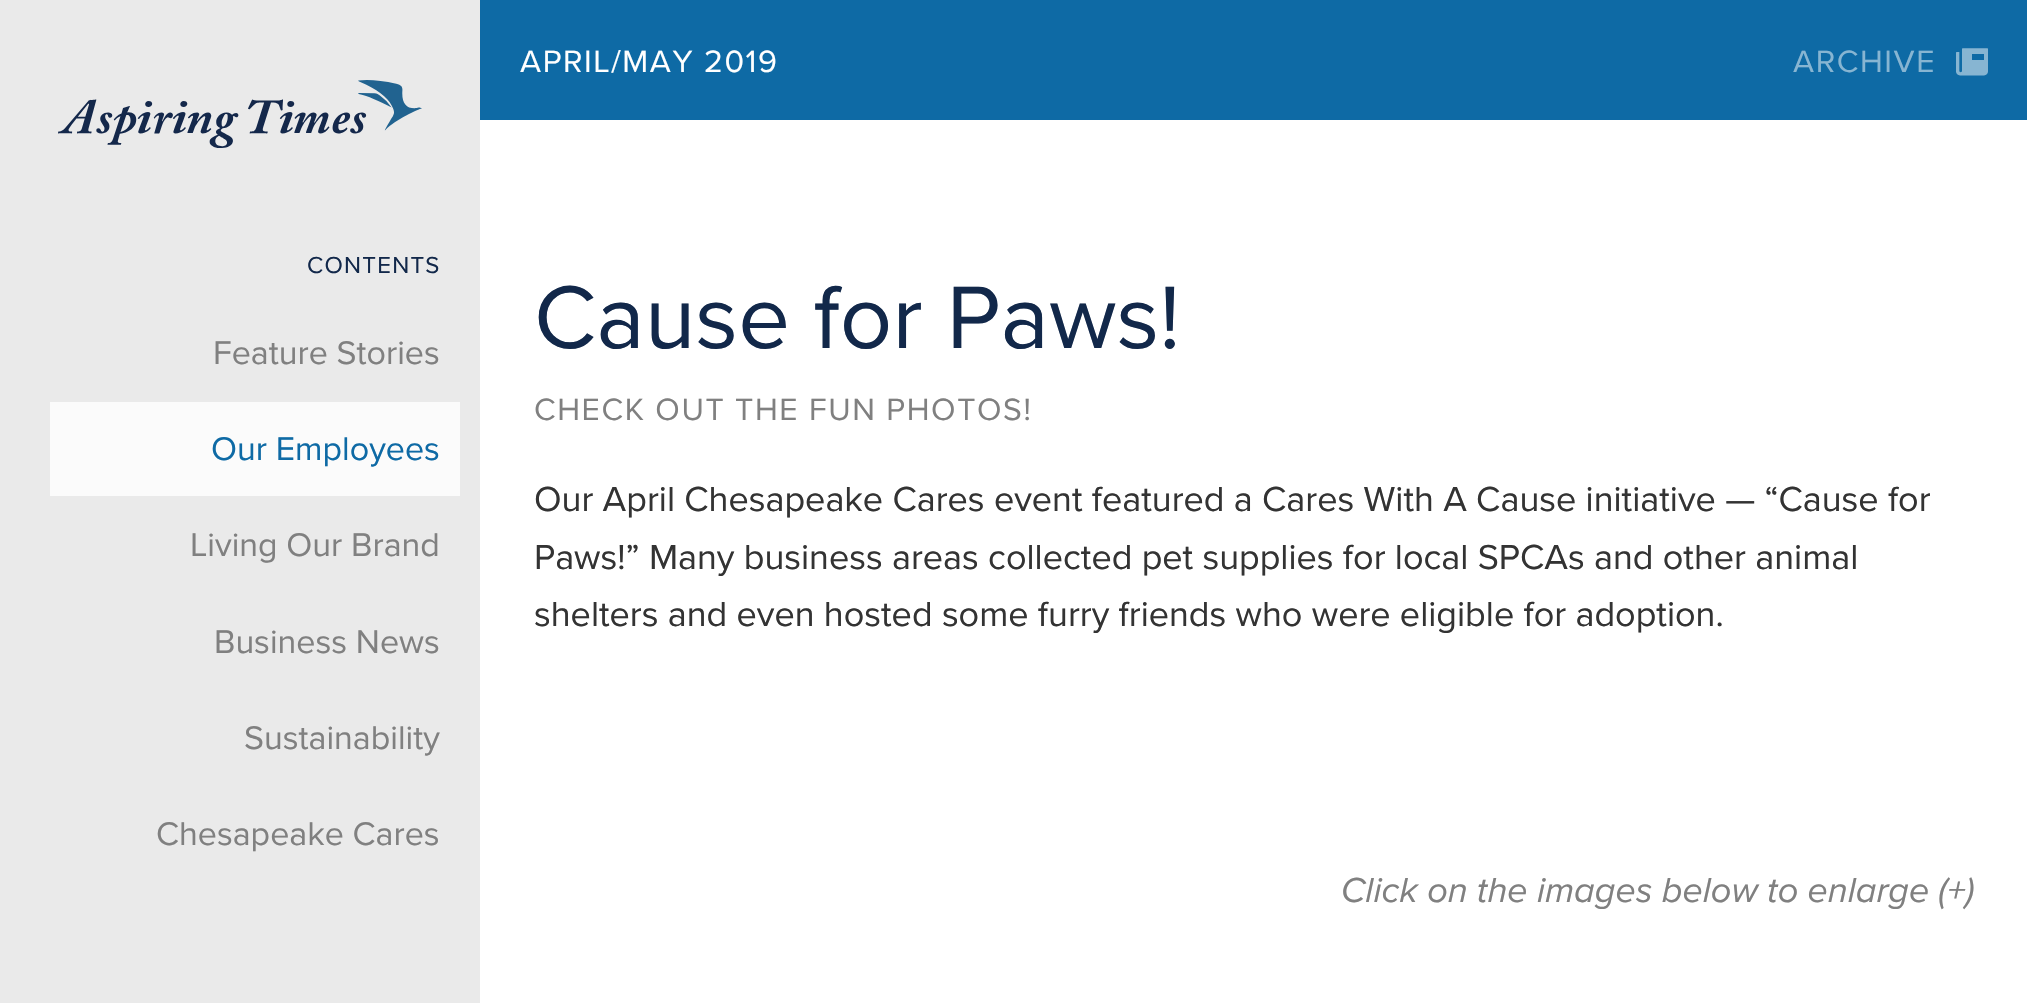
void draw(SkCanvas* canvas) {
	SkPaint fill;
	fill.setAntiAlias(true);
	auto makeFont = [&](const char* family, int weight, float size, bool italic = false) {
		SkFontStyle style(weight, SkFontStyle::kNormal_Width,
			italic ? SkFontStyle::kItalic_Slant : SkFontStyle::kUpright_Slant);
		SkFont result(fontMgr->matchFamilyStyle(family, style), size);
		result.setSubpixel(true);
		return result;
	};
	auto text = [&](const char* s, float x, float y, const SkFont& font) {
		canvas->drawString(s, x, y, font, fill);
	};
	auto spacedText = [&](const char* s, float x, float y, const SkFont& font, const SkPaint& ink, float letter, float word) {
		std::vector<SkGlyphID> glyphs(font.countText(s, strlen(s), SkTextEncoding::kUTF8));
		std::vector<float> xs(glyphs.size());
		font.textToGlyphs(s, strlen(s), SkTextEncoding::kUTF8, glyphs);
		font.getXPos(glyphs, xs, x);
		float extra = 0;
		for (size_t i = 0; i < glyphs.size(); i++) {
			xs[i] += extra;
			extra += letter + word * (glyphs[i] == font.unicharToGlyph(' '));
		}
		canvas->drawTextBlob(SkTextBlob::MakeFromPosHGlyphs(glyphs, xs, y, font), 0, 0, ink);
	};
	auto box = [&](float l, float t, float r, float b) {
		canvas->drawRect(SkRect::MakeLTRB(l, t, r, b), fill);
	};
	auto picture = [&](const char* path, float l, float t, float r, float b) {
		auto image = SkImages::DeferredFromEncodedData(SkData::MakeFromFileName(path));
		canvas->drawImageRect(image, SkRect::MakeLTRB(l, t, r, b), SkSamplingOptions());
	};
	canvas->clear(0xFFFFFFFF);
	fill.setColor(0xFF0E6AA5);
	box(480, 0, 2027, 120);
	picture("image0.png", 1956, 48, 1988, 76);
	fill.setColor(0xFFEAEAEA);
	box(0, 0, 480, 1003);
	picture("image1.png", 58, 80, 422, 148);
	fill.setColor(0xFFFBFBFB);
	box(50, 402, 460, 496);
	auto font1 = makeFont("Proxima Nova", 400, 32);
	fill.setColor(0xFFFFFFFF);
	spacedText("APRIL/MAY 2019", 520, 72, font1, fill, 1.6f, 0);
	fill.setColor(0xFF87B5D2);
	spacedText("ARCHIVE", 1793, 72, font1, fill, 1.6f, 0);
	auto font2 = makeFont("Proxima Nova", 400, 24);
	fill.setColor(0xFF12284A);
	spacedText("CONTENTS", 307, 273, font2, fill, 1.25f, 0);
	auto font3 = makeFont("Proxima Nova", 400, 34);
	fill.setColor(0xFF808080);
	text("Feature Stories", 213, 364, font3);
	fill.setColor(0xFF0E6AA5);
	text("Our Employees", 211, 460, font3);
	fill.setColor(0xFF808080);
	text("Living Our Brand", 190, 556, font3);
	text("Business News", 214, 653, font3);
	text("Sustainability", 244, 749, font3);
	text("Chesapeake Cares", 156, 845, font3);
	auto font4 = makeFont("Proxima Nova", 400, 92);
	fill.setColor(0xFF12284A);
	text("Cause for Paws!", 534, 348, font4);
	fill.setColor(0xFF808080);
	spacedText("CHECK OUT THE FUN PHOTOS!", 534, 420, font1, fill, 1.6f, 0);
	auto font5 = makeFont("Proxima Nova", 400, 36);
	fill.setColor(0xFF333333);
	text("Our April Chesapeake Cares event featured a Cares With A Cause initiative — “Cause for", 534, 511, font5);
	text("Paws!” Many business areas collected pet supplies for local SPCAs and other animal", 534, 569, font5);
	text("shelters and even hosted some furry friends who were eligible for adoption.", 534, 626, font5);
	auto font6 = makeFont("Proxima Nova", 400, 36, true);
	fill.setColor(0xFF808080);
	text("Click on the images below to enlarge (+)", 1341, 902, font6);
}
